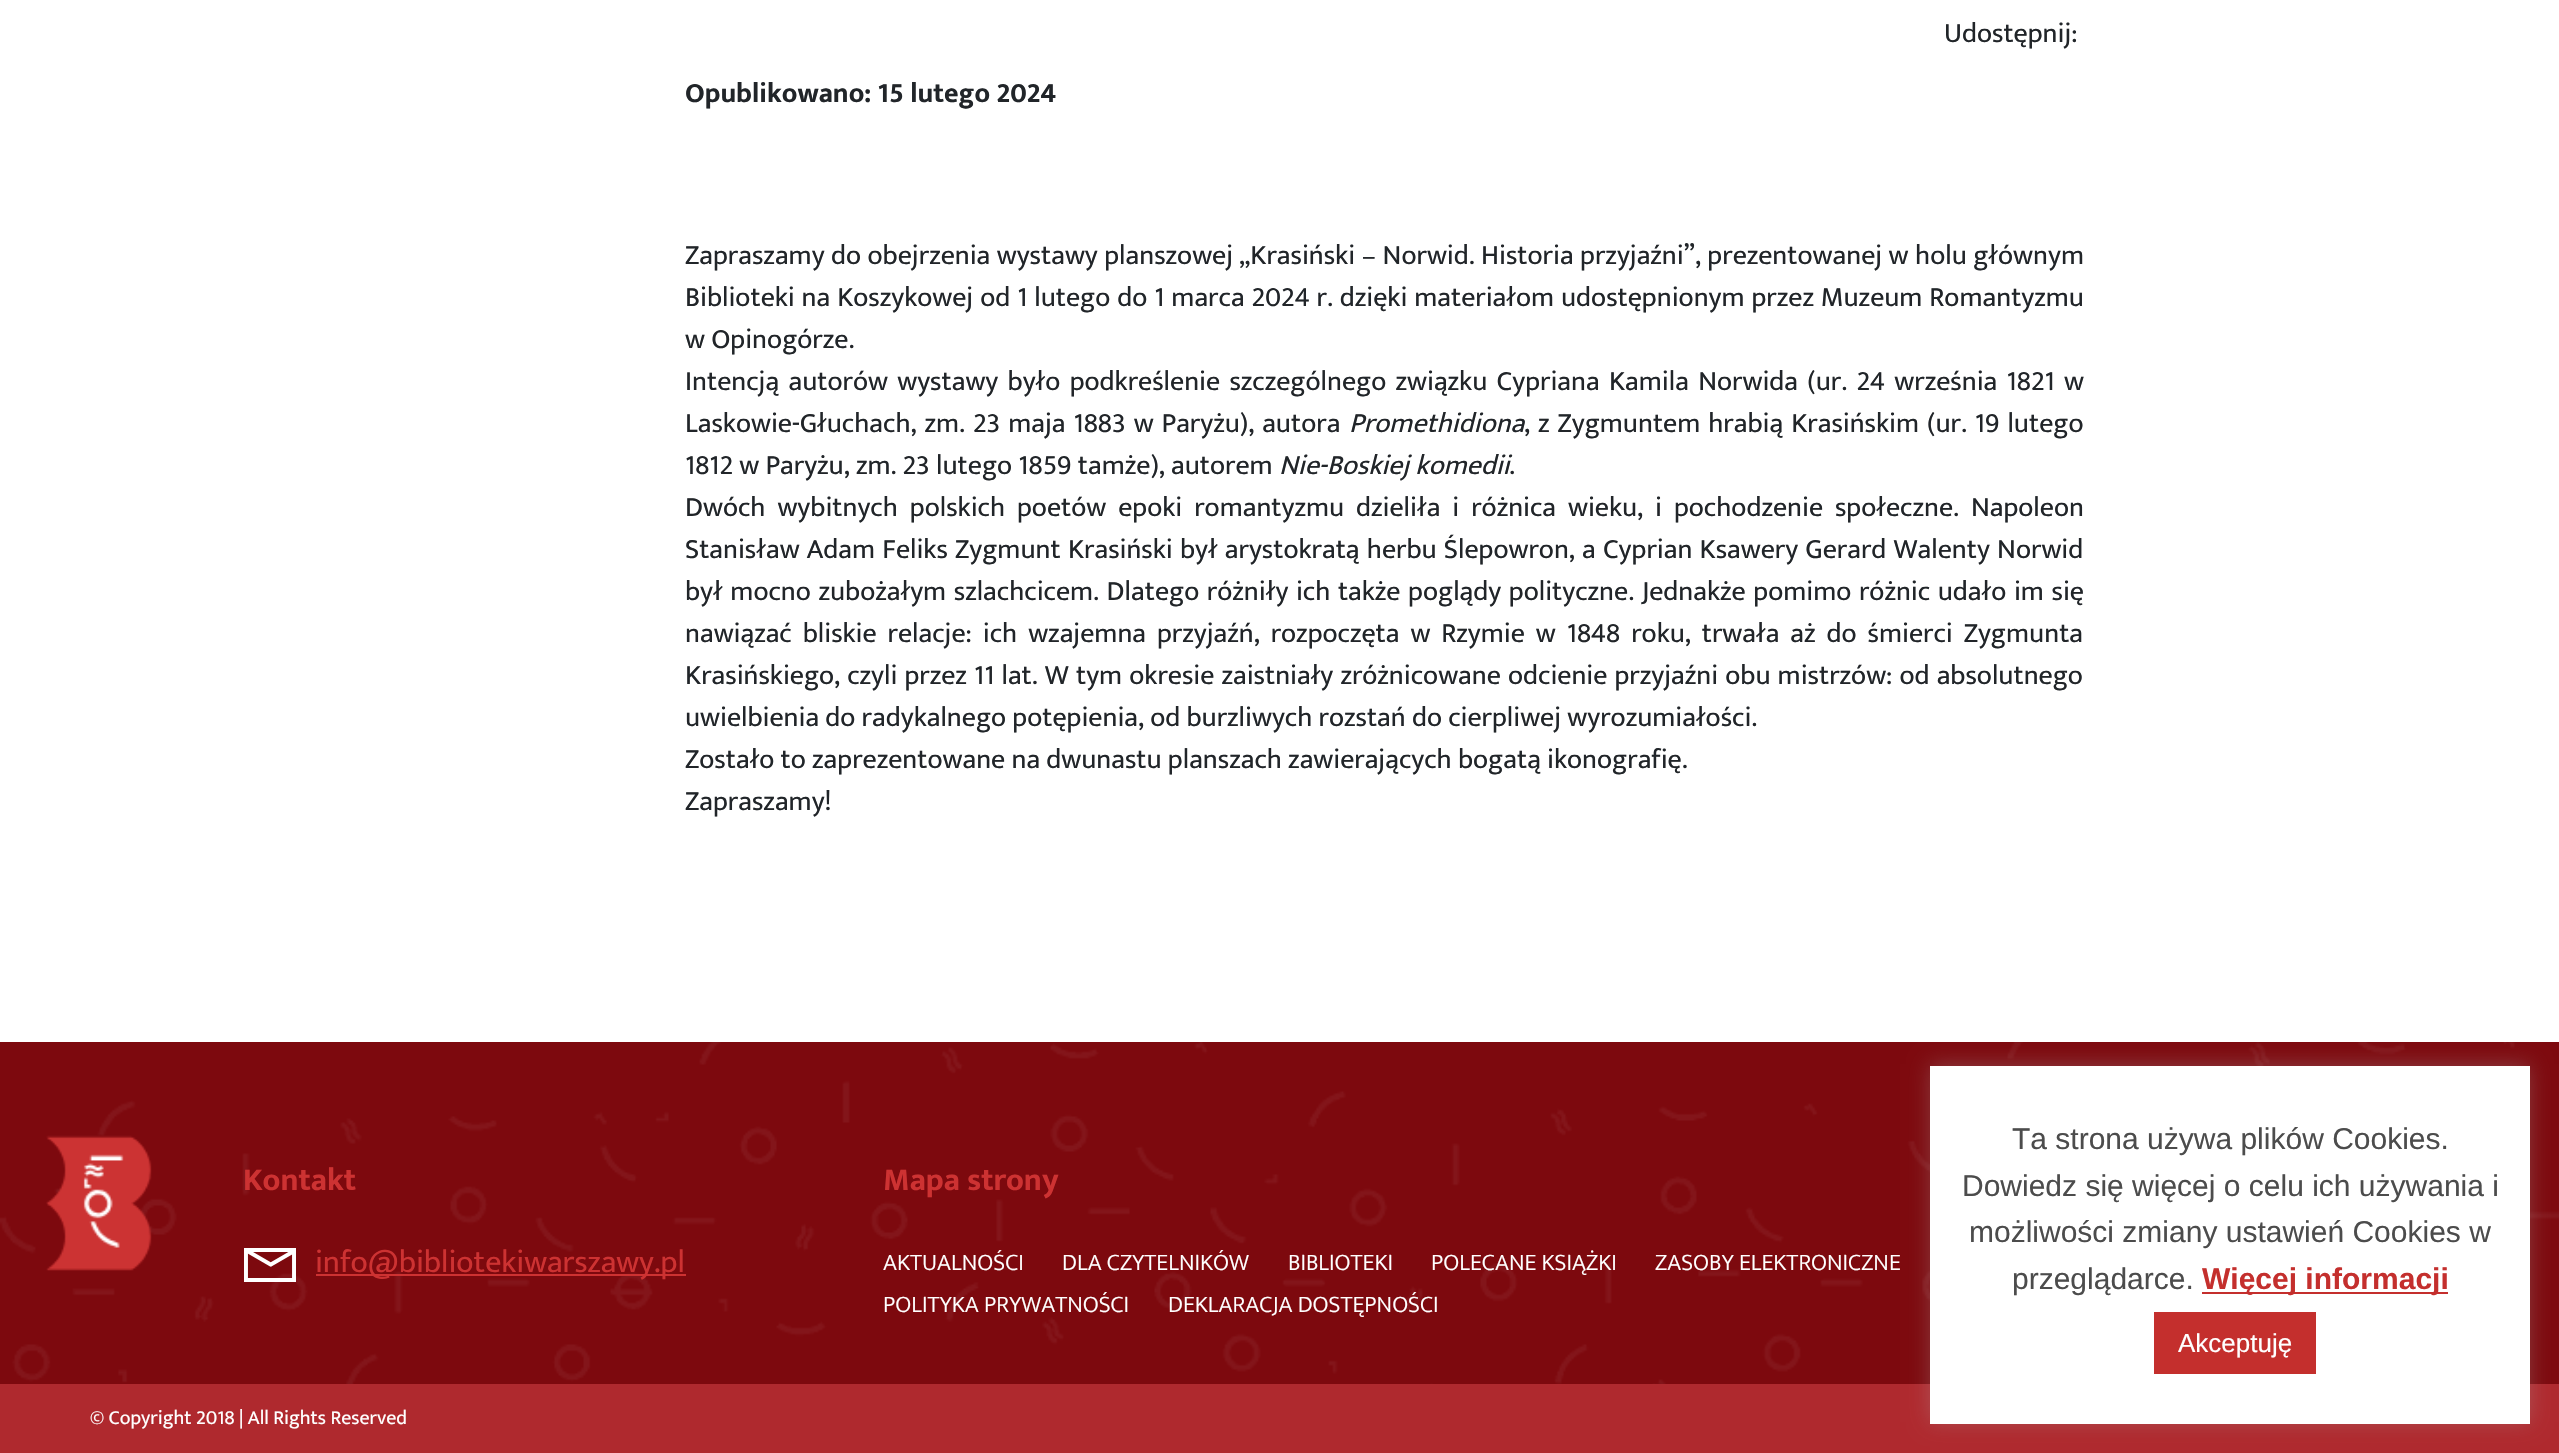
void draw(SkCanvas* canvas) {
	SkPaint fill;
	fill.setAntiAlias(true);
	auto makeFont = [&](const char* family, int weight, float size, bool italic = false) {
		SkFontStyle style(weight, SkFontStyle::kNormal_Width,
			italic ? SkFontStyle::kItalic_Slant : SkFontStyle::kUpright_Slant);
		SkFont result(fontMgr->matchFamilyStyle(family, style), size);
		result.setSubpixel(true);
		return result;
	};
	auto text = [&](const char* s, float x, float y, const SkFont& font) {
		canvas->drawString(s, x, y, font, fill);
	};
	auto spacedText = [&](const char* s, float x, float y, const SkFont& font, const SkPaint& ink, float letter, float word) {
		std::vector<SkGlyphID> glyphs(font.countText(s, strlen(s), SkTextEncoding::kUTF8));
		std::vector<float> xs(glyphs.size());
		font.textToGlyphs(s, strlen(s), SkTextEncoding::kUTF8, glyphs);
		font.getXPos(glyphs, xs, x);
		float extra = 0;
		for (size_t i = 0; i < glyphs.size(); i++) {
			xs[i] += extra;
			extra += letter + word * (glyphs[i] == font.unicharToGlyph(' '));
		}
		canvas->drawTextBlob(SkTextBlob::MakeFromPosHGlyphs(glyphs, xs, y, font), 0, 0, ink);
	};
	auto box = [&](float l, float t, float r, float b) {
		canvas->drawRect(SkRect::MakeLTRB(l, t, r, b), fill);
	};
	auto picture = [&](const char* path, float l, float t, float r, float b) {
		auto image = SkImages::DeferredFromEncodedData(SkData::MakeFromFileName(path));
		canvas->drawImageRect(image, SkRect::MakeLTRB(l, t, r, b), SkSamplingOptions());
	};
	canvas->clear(0xFFFFFFFF);
	fill.setColor(0xFF7D090E);
	box(0, 1042, 2559, 1384);
	picture("image0.png", 0, 1042, 2559, 1384);
	picture("image1.png", 46, 1135, 152, 1271);
	fill.setStyle(SkPaint::kStroke_Style);
	fill.setStrokeWidth(3.9f);
	fill.setColor(0xFFFFFFFF);
	canvas->drawPath(SkPathBuilder().moveTo(246.5f, 1250.5f).lineTo(271.5f, 1265).moveTo(295, 1250.5f).lineTo(270, 1265).detach(), fill);
	canvas->save();
	canvas->clipRect(SkRect::MakeLTRB(244, 1248, 296, 1282));
	canvas->drawPath(SkPathBuilder().moveTo(244, 1248.5f).lineTo(296, 1248.5f).lineTo(296, 1282).lineTo(244, 1282).close().detach(), fill);
	canvas->restore();
	canvas->drawPath(SkPathBuilder().moveTo(246, 1250).lineTo(294, 1250).lineTo(294, 1280).lineTo(246, 1280).close().detach(), fill);
	fill.setStyle(SkPaint::kFill_Style);
	fill.setColor(0xFFCD3232);
	box(316, 1274, 686, 1276);
	fill.setColor(0xFFAF292E);
	box(0, 1384, 2559, 1453);
	fill.setColor(0x4DACABAB);
	fill.setMaskFilter(SkMaskFilter::MakeBlur(kNormal_SkBlurStyle, 10));
	canvas->drawRect(SkRect::MakeLTRB(1930, 1064, 2530, 1422), fill);
	fill.setMaskFilter(nullptr);
	fill.setColor(0xFFFFFFFF);
	box(1930, 1066, 2530, 1424);
	fill.setColor(0xFFC42F2D);
	box(2202, 1292, 2448, 1294);
	box(2154, 1312, 2316, 1374);
	auto font1 = makeFont("Mukta", 400, 28);
	fill.setColor(0xFF212529);
	text("Udostępnij:", 1944, 42, font1);
	auto font2 = makeFont("Mukta", 700, 28);
	text("Opublikowano: 15 lutego 2024", 685, 102, font2);
	spacedText("Zapraszamy do obejrzenia wystawy planszowej „Krasiński – Norwid. Historia przyjaźni”, prezentowanej w holu głównym", 685, 264, font1, fill, 0, 0.25f);
	spacedText("Biblioteki na Koszykowej od 1 lutego do 1 marca 2024 r. dzięki materiałom udostępnionym przez Muzeum Romantyzmu", 685, 306, font1, fill, 0, 0.7f);
	text("w Opinogórze.", 685, 348, font1);
	spacedText("Intencją autorów wystawy było podkreślenie szczególnego związku Cypriana Kamila Norwida (ur. 24 września 1821 w", 685, 390, font1, fill, 0, 3.1f);
	spacedText("Laskowie-Głuchach, zm. 23 maja 1883 w Paryżu), autora", 685, 432, font1, fill, 0, 1.75f);
	auto font3 = makeFont("Mukta", 400, 28, true);
	text("Promethidiona", 1349, 432, font3);
	spacedText(", z Zygmuntem hrabią Krasińskim (ur. 19 lutego", 1524, 432, font1, fill, 0, 1.75f);
	text("1812 w Paryżu, zm. 23 lutego 1859 tamże), autorem", 685, 474, font1);
	text("Nie-Boskiej komedii", 1279, 474, font3);
	text(".", 1509, 474, font1);
	spacedText("Dwóch wybitnych polskich poetów epoki romantyzmu dzieliła i różnica wieku, i pochodzenie społeczne. Napoleon", 685, 516, font1, fill, 0, 5.75f);
	spacedText("Stanisław Adam Feliks Zygmunt Krasiński był arystokratą herbu Ślepowron, a Cyprian Ksawery Gerard Walenty Norwid", 685, 558, font1, fill, 0, 1);
	spacedText("był mocno zubożałym szlachcicem. Dlatego różniły ich także poglądy polityczne. Jednakże pomimo różnic udało im się", 685, 600, font1, fill, 0, 1.4f);
	spacedText("nawiązać bliskie relacje: ich wzajemna przyjaźń, rozpoczęta w Rzymie w 1848 roku, trwała aż do śmierci Zygmunta", 685, 642, font1, fill, 0, 4.75f);
	spacedText("Krasińskiego, czyli przez 11 lat. W tym okresie zaistniały zróżnicowane odcienie przyjaźni obu mistrzów: od absolutnego", 685, 684, font1, fill, 0, 0.9f);
	text("uwielbienia do radykalnego potępienia, od burzliwych rozstań do cierpliwej wyrozumiałości.", 685, 726, font1);
	text("Zostało to zaprezentowane na dwunastu planszach zawierających bogatą ikonografię.", 685, 768, font1);
	text("Zapraszamy!", 685, 810, font1);
	auto font4 = makeFont("Mukta", 700, 32);
	fill.setColor(0xFFCD3232);
	text("Kontakt", 243, 1190, font4);
	auto font5 = makeFont("Mukta", 400, 32);
	text("info@bibliotekiwarszawy.pl", 315, 1272, font5);
	text("Mapa strony", 883, 1190, font4);
	auto font6 = makeFont("Mukta", 300, 24);
	fill.setColor(0xFFFFFFFF);
	text("AKTUALNOŚCI", 883, 1270, font6);
	text("DLA CZYTELNIKÓW", 1062, 1270, font6);
	text("BIBLIOTEKI", 1288, 1270, font6);
	text("POLECANE KSIĄŻKI", 1431, 1270, font6);
	text("ZASOBY ELEKTRONICZNE", 1655, 1270, font6);
	text("POLITYKA PRYWATNOŚCI", 883, 1312, font6);
	text("DEKLARACJA DOSTĘPNOŚCI", 1168, 1312, font6);
	auto font7 = makeFont("Mukta", 400, 20);
	text("© Copyright 2018 | All Rights Reserved", 90, 1424, font7);
	auto font8 = makeFont("Liberation Sans", 400, 30);
	fill.setColor(0xFF4C4C4C);
	text("Ta strona używa plików Cookies.", 2012, 1149, font8);
	text("Dowiedz się więcej o celu ich używania i", 1962, 1196, font8);
	text("możliwości zmiany ustawień Cookies w", 1969, 1242, font8);
	text("przeglądarce.", 2012, 1289, font8);
	auto font9 = makeFont("Liberation Sans", 700, 30);
	fill.setColor(0xFFC42F2D);
	text("Więcej informacji", 2202, 1289, font9);
	auto font10 = makeFont("Liberation Sans", 400, 26);
	fill.setColor(0xFFFFFFFF);
	text("Akceptuję", 2178, 1352, font10);
}
